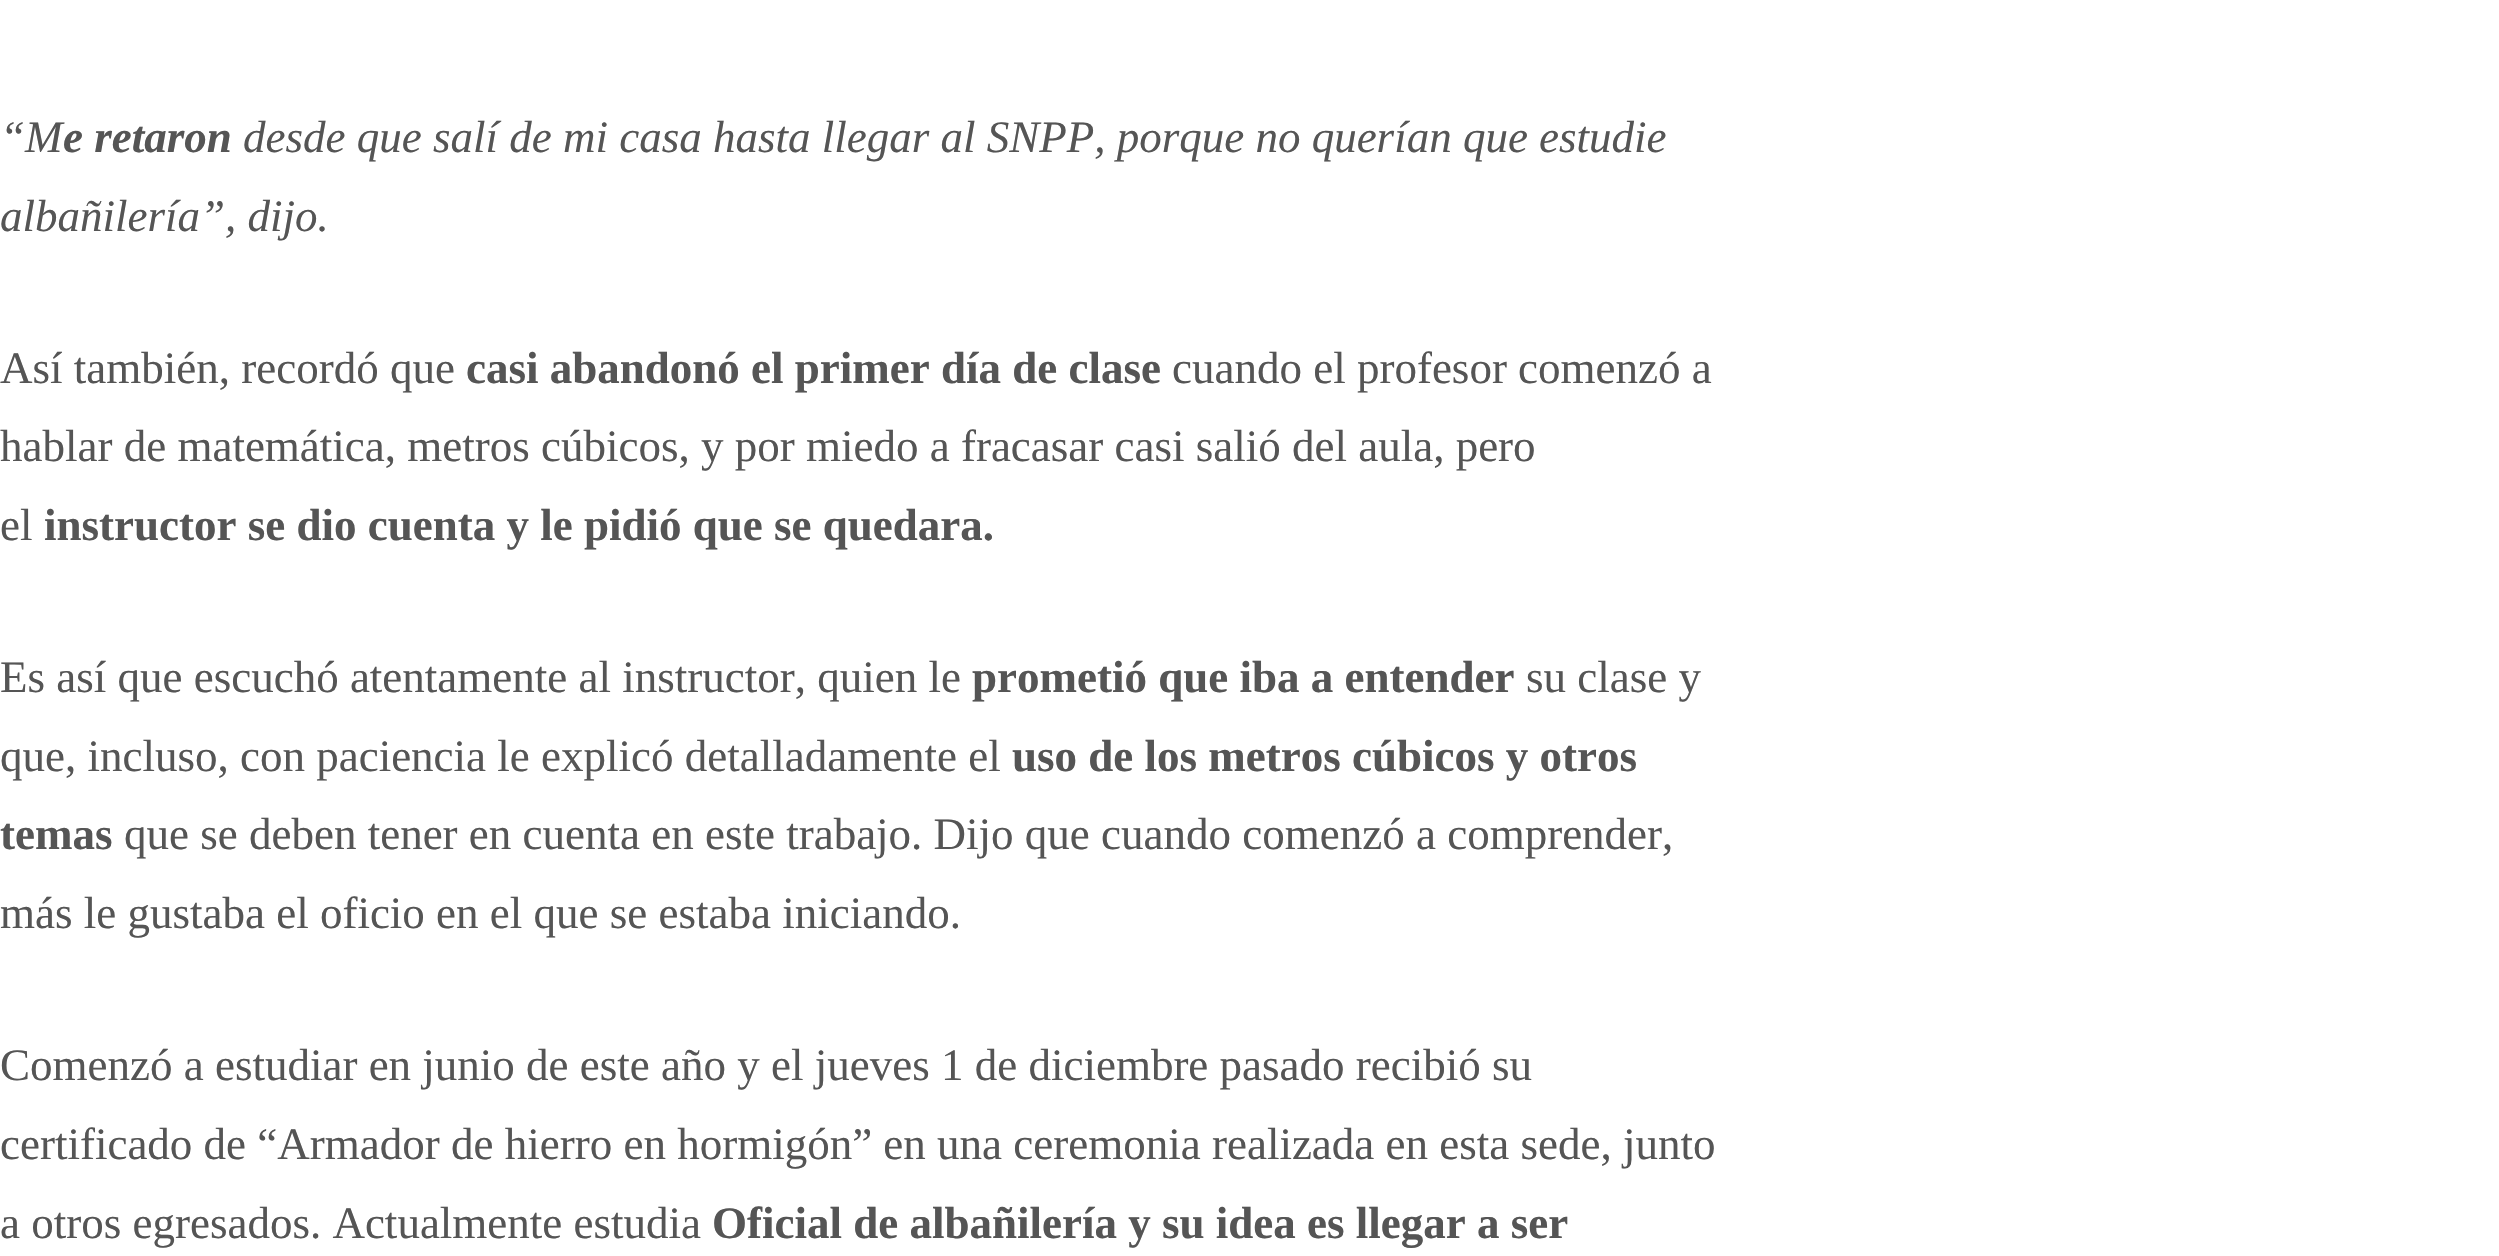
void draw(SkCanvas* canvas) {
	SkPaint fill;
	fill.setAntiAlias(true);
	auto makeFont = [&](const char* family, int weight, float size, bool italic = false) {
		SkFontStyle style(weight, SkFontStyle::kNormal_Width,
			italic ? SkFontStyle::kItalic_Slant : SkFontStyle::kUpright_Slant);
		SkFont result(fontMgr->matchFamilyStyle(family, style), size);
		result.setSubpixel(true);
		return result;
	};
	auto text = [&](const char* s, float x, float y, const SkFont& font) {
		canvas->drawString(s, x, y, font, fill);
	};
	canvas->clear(0xFFFFFFFF);
	auto font1 = makeFont("Liberation Serif", 400, 45, true);
	fill.setColor(0xFF555555);
	text("“M", 0, 152, font1);
	auto font2 = makeFont("Liberation Serif", 700, 45, true);
	text("e retaron", 63, 152, font2);
	text("desde que salí de mi casa hasta llegar al SNPP, porque no querían que estudie", 243, 152, font1);
	text("albañilería”, dijo.", 0, 231, font1);
	auto font3 = makeFont("Liberation Serif", 400, 45);
	text("Así también, recordó que", 0, 383, font3);
	auto font4 = makeFont("Liberation Serif", 700, 45);
	text("casi abandonó el primer día de clase", 466, 383, font4);
	text("cuando el profesor comenzó a", 1172, 383, font3);
	text("hablar de matemática, metros cúbicos, y por miedo a fracasar casi salió del aula, pero", 0, 461, font3);
	text("el", 0, 540, font3);
	text("instructor se dio cuenta y le pidió que se quedara.", 44, 540, font4);
	text("Es así que escuchó atentamente al instructor, quien le", 0, 692, font3);
	text("prometió que iba a entender", 972, 692, font4);
	text("su clase y", 1526, 692, font3);
	text("que, incluso, con paciencia le explicó detalladamente el", 0, 771, font3);
	text("uso de los metros cúbicos y otros", 1012, 771, font4);
	text("temas", 0, 849, font4);
	text("que se deben tener en cuenta en este trabajo. Dijo que cuando comenzó a comprender,", 124, 849, font3);
	text("más le gustaba el oficio en el que se estaba iniciando.", 0, 928, font3);
	text("Comenzó a estudiar en junio de este año y el jueves 1 de diciembre pasado recibió su", 0, 1080, font3);
	text("certificado de “Armador de hierro en hormigón” en una ceremonia realizada en esta sede, junto", 0, 1159, font3);
	text("a otros egresados. Actualmente estudia", 0, 1238, font3);
	text("Oficial de albañilería y su idea es llegar a ser", 712, 1238, font4);
}
